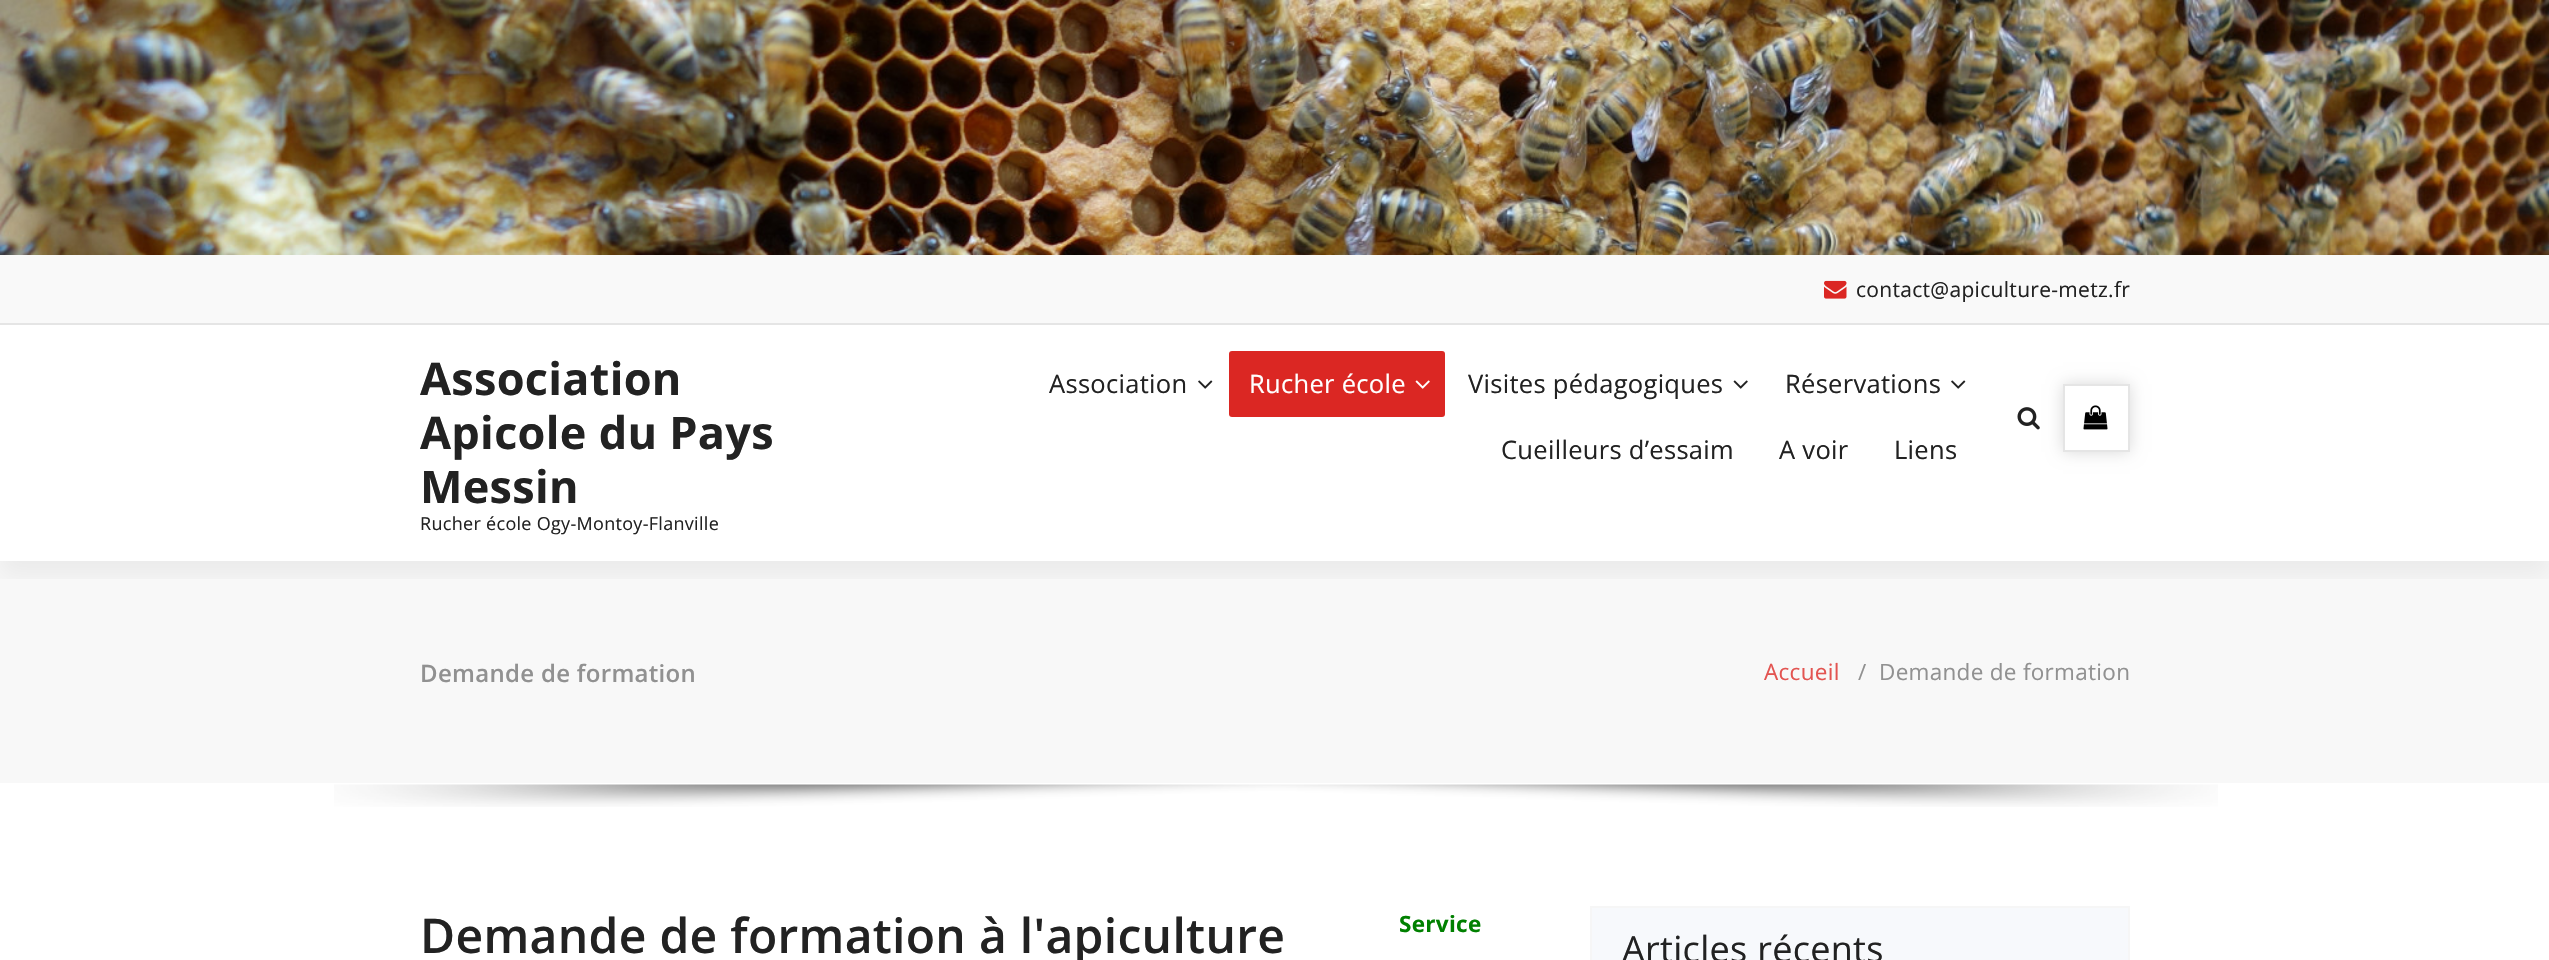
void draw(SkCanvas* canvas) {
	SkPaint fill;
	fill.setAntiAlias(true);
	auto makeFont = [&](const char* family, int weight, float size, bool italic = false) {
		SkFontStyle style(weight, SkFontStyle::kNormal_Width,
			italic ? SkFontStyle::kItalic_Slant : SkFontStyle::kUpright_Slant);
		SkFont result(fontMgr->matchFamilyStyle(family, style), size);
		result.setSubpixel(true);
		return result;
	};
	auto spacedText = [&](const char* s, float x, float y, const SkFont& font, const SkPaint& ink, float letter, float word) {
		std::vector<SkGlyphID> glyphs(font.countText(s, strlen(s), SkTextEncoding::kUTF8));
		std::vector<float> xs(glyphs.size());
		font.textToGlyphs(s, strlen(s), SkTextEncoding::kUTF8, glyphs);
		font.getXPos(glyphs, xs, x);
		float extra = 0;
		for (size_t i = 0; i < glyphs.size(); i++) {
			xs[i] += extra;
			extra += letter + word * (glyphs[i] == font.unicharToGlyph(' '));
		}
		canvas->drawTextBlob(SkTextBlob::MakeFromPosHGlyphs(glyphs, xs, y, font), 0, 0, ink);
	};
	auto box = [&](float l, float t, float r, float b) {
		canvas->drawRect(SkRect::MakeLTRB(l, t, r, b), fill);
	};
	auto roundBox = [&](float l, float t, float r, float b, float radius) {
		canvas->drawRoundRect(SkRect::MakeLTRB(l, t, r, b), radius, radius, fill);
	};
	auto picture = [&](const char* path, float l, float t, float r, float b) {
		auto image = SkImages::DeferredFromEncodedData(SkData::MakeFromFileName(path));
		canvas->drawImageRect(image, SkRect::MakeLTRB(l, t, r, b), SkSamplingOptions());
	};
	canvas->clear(0xFFFFFFFF);
	picture("image0.png", 0, 0, 2549, 255);
	fill.setColor(0xFFF8F8F8);
	box(0, 561, 2549, 783);
	canvas->save();
	canvas->clipRect(SkRect::MakeLTRB(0, 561, 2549, 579));
	fill.setColor(0x0D000000);
	fill.setMaskFilter(SkMaskFilter::MakeBlur(kNormal_SkBlurStyle, 11));
	canvas->drawRect(SkRect::MakeLTRB(0, 339, 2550, 576), fill);
	fill.setMaskFilter(nullptr);
	canvas->restore();
	fill.setColor(0xFFF9F9F9);
	box(0, 255, 2549, 323);
	fill.setColor(0xFFE5E5E5);
	box(0, 323, 2549, 325);
	picture("image1.png", 1824, 280, 1847, 299);
	picture("image2.png", 1198, 380, 1213, 389);
	fill.setColor(0xFFDB2723);
	roundBox(1229, 351, 1445, 417, 3);
	picture("image3.png", 1415, 380, 1430, 389);
	picture("image4.png", 1733, 380, 1748, 389);
	picture("image2.png", 1951, 380, 1966, 389);
	picture("image5.png", 2017, 407, 2040, 430);
	canvas->save();
	canvas->clipPath(SkPathBuilder(SkPathFillType::kEvenOdd).moveTo(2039, 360).lineTo(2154, 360).lineTo(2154, 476).lineTo(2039, 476).close().moveTo(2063, 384).lineTo(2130, 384).lineTo(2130, 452).lineTo(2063, 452).close().detach(), true);
	fill.setColor(0x26000000);
	fill.setMaskFilter(SkMaskFilter::MakeBlur(kNormal_SkBlurStyle, 7.5f));
	canvas->drawRect(SkRect::MakeLTRB(2063, 384, 2130, 452), fill);
	fill.setMaskFilter(nullptr);
	canvas->restore();
	fill.setStyle(SkPaint::kStroke_Style);
	fill.setStrokeWidth(2);
	fill.setColor(0xFFE5E5E5);
	canvas->drawRect(SkRect::MakeLTRB(2064, 385, 2129, 451), fill);
	picture("image6.png", 2083, 405, 2108, 430);
	picture("image7.png", 334, 784, 2218, 807);
	fill.setStyle(SkPaint::kFill_Style);
	fill.setColor(0xFFF7F9FC);
	canvas->drawRect(SkRect::MakeLTRB(1591, 907, 2129, 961), fill);
	fill.setStyle(SkPaint::kStroke_Style);
	fill.setColor(0xFFF6F6F6);
	canvas->drawRect(SkRect::MakeLTRB(1591, 907, 2129, 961), fill);
	auto font1 = makeFont("Open Sans", 400, 21);
	fill.setStyle(SkPaint::kFill_Style);
	fill.setColor(0xFF222222);
	spacedText("contact@apiculture-metz.fr", 1856, 297, font1, fill, 0.3f, 0);
	auto font2 = makeFont("Open Sans", 700, 45);
	spacedText("Association", 420, 395, font2, fill, 0.3f, 0);
	spacedText("Apicole du Pays", 420, 449, font2, fill, 0.3f, 0);
	spacedText("Messin", 420, 503, font2, fill, 0.3f, 0);
	auto font3 = makeFont("Open Sans", 400, 18);
	spacedText("Rucher école Ogy-Montoy-Flanville", 420, 530, font3, fill, 0.3f, 0);
	auto font4 = makeFont("Open Sans", 400, 25.5f);
	spacedText("Association", 1049, 393, font4, fill, 0.3f, 0);
	fill.setColor(0xFFFFFFFF);
	spacedText("Rucher école", 1249, 393, font4, fill, 0.3f, 0);
	fill.setColor(0xFF222222);
	spacedText("Visites pédagogiques", 1468, 393, font4, fill, 0.3f, 0);
	spacedText("Réservations", 1785, 393, font4, fill, 0.3f, 0);
	spacedText("Cueilleurs d’essaim", 1501, 459, font4, fill, 0.3f, 0);
	spacedText("A voir", 1779, 459, font4, fill, 0.3f, 0);
	spacedText("Liens", 1894, 459, font4, fill, 0.3f, 0);
	auto font5 = makeFont("Open Sans", 600, 24);
	fill.setColor(0xFF919191);
	spacedText("Demande de formation", 420, 682, font5, fill, 0.3f, 0);
	auto font6 = makeFont("Open Sans", 400, 22.5f);
	fill.setColor(0xFFE35451);
	spacedText("Accueil", 1764, 680, font6, fill, 0.3f, 0);
	fill.setColor(0xFF919191);
	spacedText("/", 1858, 680, font6, fill, 0.3f, 0);
	spacedText("Demande de formation", 1879, 680, font6, fill, 0.3f, 0);
	auto font7 = makeFont("Open Sans", 600, 48);
	fill.setColor(0xFF222222);
	spacedText("Demande de formation à l'apiculture", 420, 953, font7, fill, 0.3f, 0);
	auto font8 = makeFont("Open Sans", 700, 22.5f);
	fill.setColor(0xFF008000);
	spacedText("Service", 1399, 932, font8, fill, 0.3f, 0);
	auto font9 = makeFont("Open Sans", 400, 36);
	fill.setColor(0xFF222222);
	spacedText("Articles récents", 1622, 962, font9, fill, 0.3f, 0);
}
